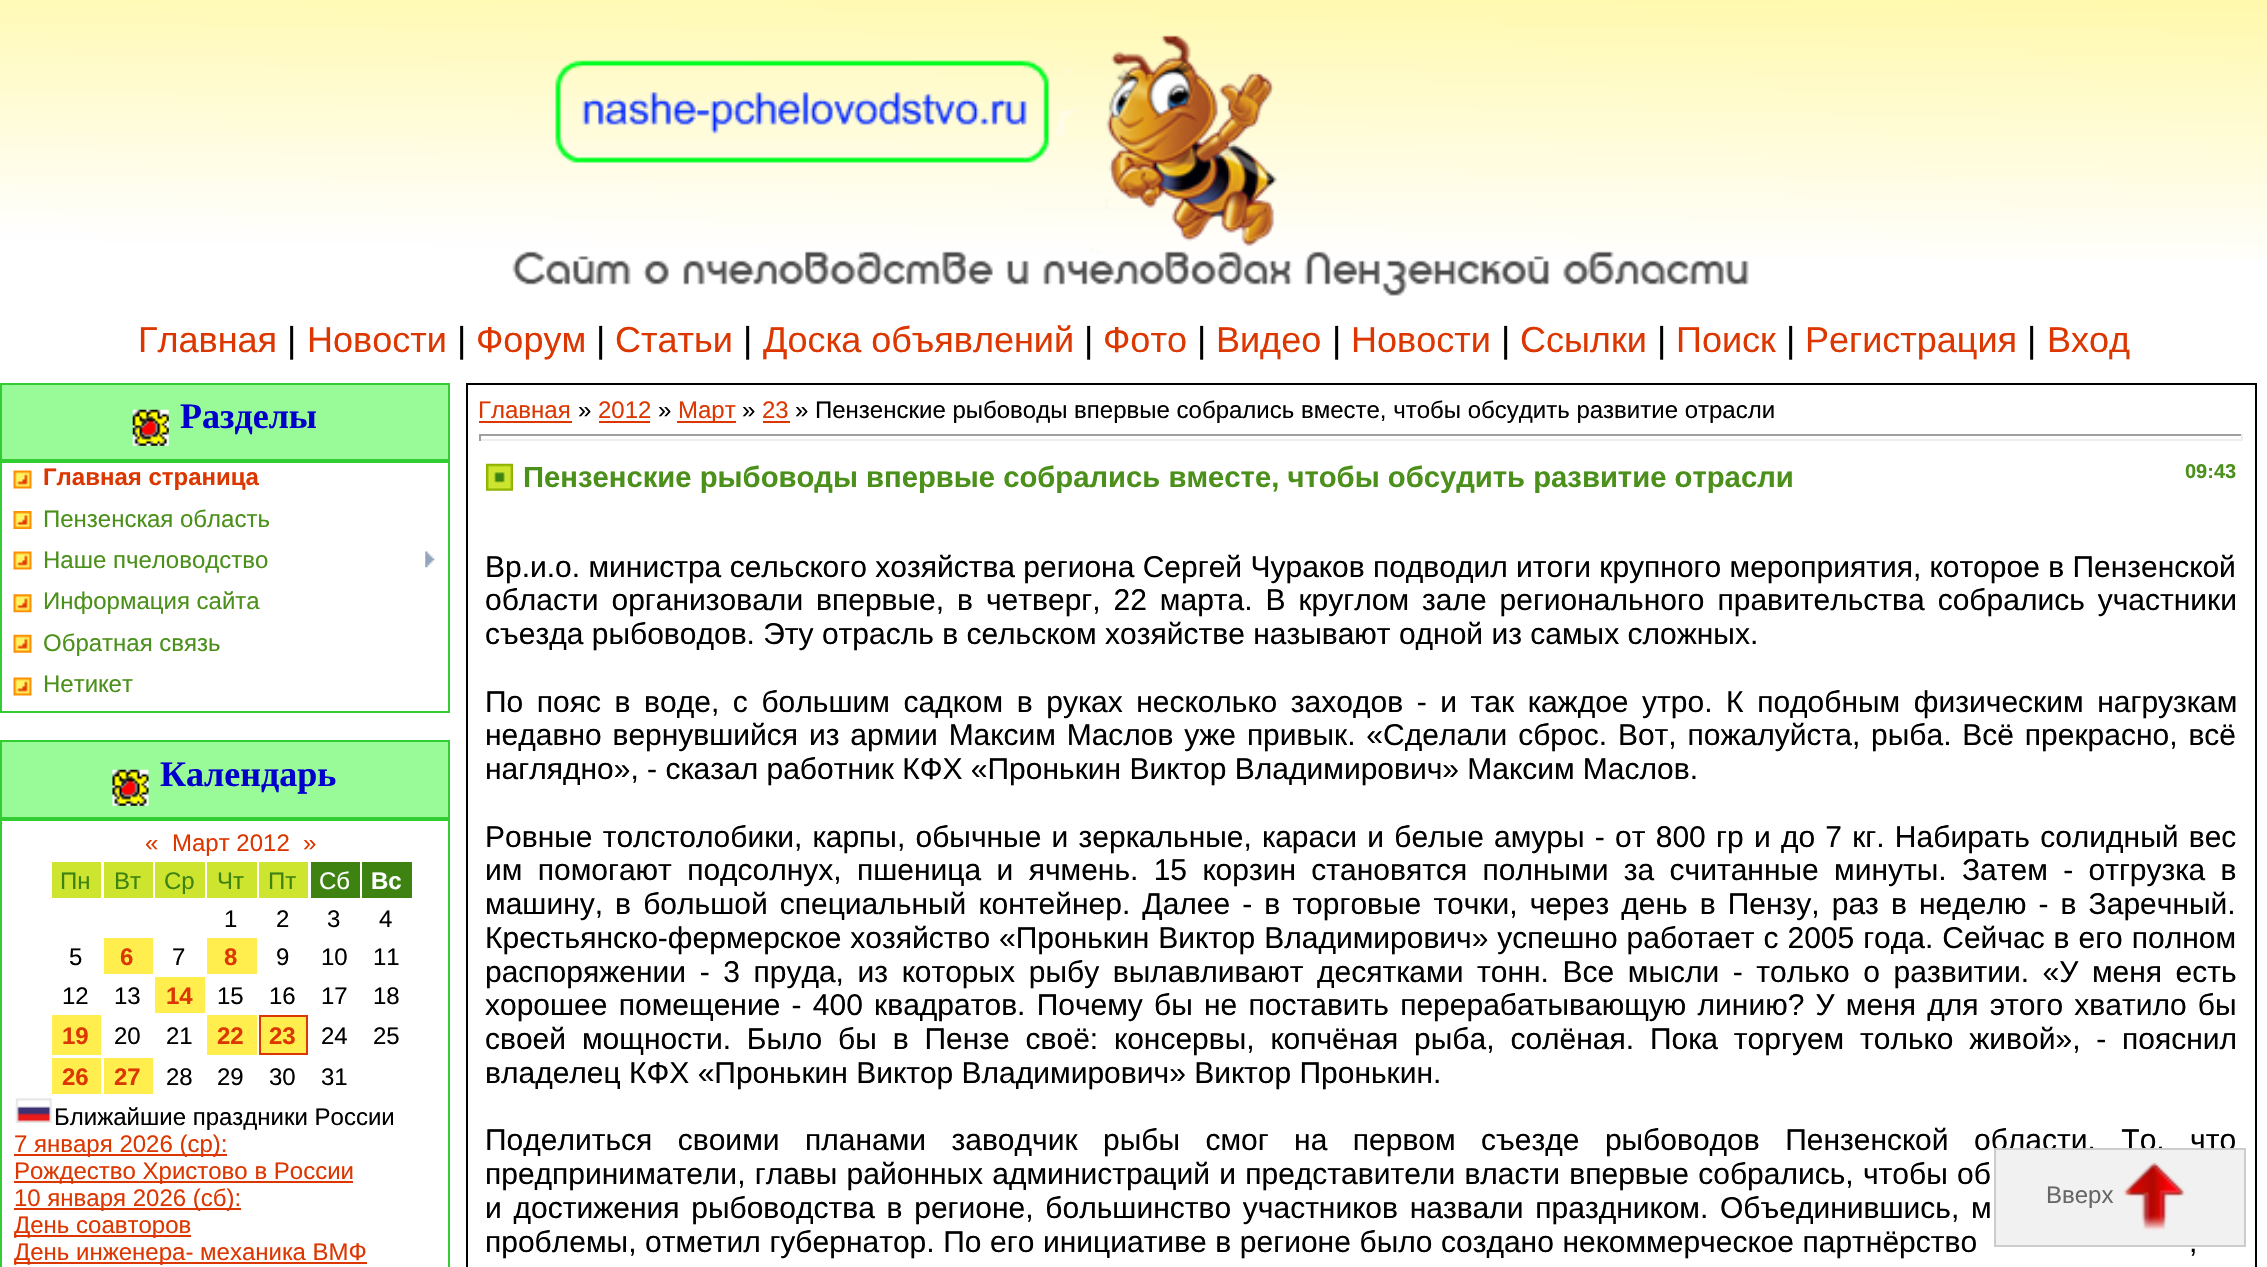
void draw(SkCanvas* canvas) {
	SkPaint fill;
	fill.setAntiAlias(true);
	auto makeFont = [&](const char* family, int weight, float size, bool italic = false) {
		SkFontStyle style(weight, SkFontStyle::kNormal_Width,
			italic ? SkFontStyle::kItalic_Slant : SkFontStyle::kUpright_Slant);
		SkFont result(fontMgr->matchFamilyStyle(family, style), size);
		result.setSubpixel(true);
		return result;
	};
	auto text = [&](const char* s, float x, float y, const SkFont& font) {
		canvas->drawString(s, x, y, font, fill);
	};
	auto spacedText = [&](const char* s, float x, float y, const SkFont& font, const SkPaint& ink, float letter, float word) {
		std::vector<SkGlyphID> glyphs(font.countText(s, strlen(s), SkTextEncoding::kUTF8));
		std::vector<float> xs(glyphs.size());
		font.textToGlyphs(s, strlen(s), SkTextEncoding::kUTF8, glyphs);
		font.getXPos(glyphs, xs, x);
		float extra = 0;
		for (size_t i = 0; i < glyphs.size(); i++) {
			xs[i] += extra;
			extra += letter + word * (glyphs[i] == font.unicharToGlyph(' '));
		}
		canvas->drawTextBlob(SkTextBlob::MakeFromPosHGlyphs(glyphs, xs, y, font), 0, 0, ink);
	};
	auto box = [&](float l, float t, float r, float b) {
		canvas->drawRect(SkRect::MakeLTRB(l, t, r, b), fill);
	};
	auto picture = [&](const char* path, float l, float t, float r, float b) {
		auto image = SkImages::DeferredFromEncodedData(SkData::MakeFromFileName(path));
		canvas->drawImageRect(image, SkRect::MakeLTRB(l, t, r, b), SkSamplingOptions());
	};
	canvas->clear(0xFFFFFFFF);
	picture("image0.png", 0, 0, 2267, 259);
	picture("image1.png", 512, 35, 1749, 296);
	fill.setColor(0xFF98FB98);
	canvas->drawRect(SkRect::MakeLTRB(1, 384, 449, 460), fill);
	fill.setStyle(SkPaint::kStroke_Style);
	fill.setStrokeWidth(2);
	fill.setColor(0xFF32CD32);
	canvas->drawRect(SkRect::MakeLTRB(1, 384, 449, 460), fill);
	picture("image2.png", 132, 409, 169, 446);
	canvas->drawRect(SkRect::MakeLTRB(1, 462, 449, 712), fill);
	picture("image3.png", 13, 470, 32, 489);
	picture("image4.png", 13, 511, 32, 529);
	picture("image3.png", 13, 551, 32, 570);
	picture("image5.png", 425, 551, 435, 568);
	picture("image6.png", 13, 594, 32, 613);
	picture("image7.png", 13, 634, 32, 653);
	picture("image3.png", 13, 677, 32, 696);
	fill.setStyle(SkPaint::kFill_Style);
	fill.setColor(0xFF98FB98);
	canvas->drawRect(SkRect::MakeLTRB(1, 741, 449, 818), fill);
	fill.setStyle(SkPaint::kStroke_Style);
	fill.setColor(0xFF32CD32);
	canvas->drawRect(SkRect::MakeLTRB(1, 741, 449, 818), fill);
	picture("image8.png", 112, 769, 149, 806);
	canvas->drawRect(SkRect::MakeLTRB(1, 820, 449, 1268), fill);
	fill.setStyle(SkPaint::kFill_Style);
	fill.setColor(0xFFCEE530);
	box(52, 862, 101, 898);
	box(104, 862, 153, 898);
	box(155, 862, 205, 898);
	box(207, 862, 257, 898);
	box(259, 862, 308, 898);
	fill.setColor(0xFF3E8311);
	box(311, 862, 360, 898);
	box(362, 862, 412, 898);
	fill.setColor(0xFFFFEE4D);
	box(104, 938, 153, 974);
	box(207, 938, 257, 974);
	box(155, 977, 205, 1013);
	box(52, 1015, 101, 1055);
	box(207, 1015, 257, 1055);
	canvas->drawRect(SkRect::MakeLTRB(260, 1016, 307, 1054), fill);
	fill.setStyle(SkPaint::kStroke_Style);
	fill.setColor(0xFFDC3700);
	canvas->drawRect(SkRect::MakeLTRB(260, 1016, 307, 1054), fill);
	fill.setStyle(SkPaint::kFill_Style);
	fill.setColor(0xFFFFEE4D);
	box(52, 1058, 101, 1094);
	box(104, 1058, 153, 1094);
	picture("image9.png", 15, 1098, 52, 1123);
	fill.setColor(0xFFDC3700);
	box(14, 1154, 227, 1156);
	box(14, 1181, 353, 1183);
	box(14, 1208, 241, 1210);
	box(14, 1235, 191, 1237);
	box(14, 1262, 367, 1264);
	fill.setStyle(SkPaint::kStroke_Style);
	fill.setColor(0xFF000000);
	canvas->drawRect(SkRect::MakeLTRB(467, 384, 2256, 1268), fill);
	fill.setStyle(SkPaint::kFill_Style);
	fill.setColor(0xFFDC3700);
	box(479, 421, 572, 423);
	box(599, 421, 650, 423);
	box(677, 421, 736, 423);
	box(763, 421, 790, 423);
	fill.setColor(0xFF9F9F9F);
	box(479, 434, 2243, 436);
	fill.setColor(0xFFEEEEEE);
	box(2241, 434, 2243, 441);
	box(479, 439, 2243, 441);
	fill.setColor(0xFF9F9F9F);
	box(479, 434, 481, 441);
	picture("image10.png", 486, 463, 513, 491);
	auto font1 = makeFont("Liberation Sans", 400, 36);
	fill.setColor(0xFFDC3700);
	text("Главная", 138, 352, font1);
	fill.setColor(0xFF000000);
	text("|", 287, 352, font1);
	fill.setColor(0xFFDC3700);
	text("Новости", 307, 352, font1);
	fill.setColor(0xFF000000);
	text("|", 457, 352, font1);
	fill.setColor(0xFFDC3700);
	text("Форум", 476, 352, font1);
	fill.setColor(0xFF000000);
	text("|", 596, 352, font1);
	fill.setColor(0xFFDC3700);
	text("Статьи", 615, 352, font1);
	fill.setColor(0xFF000000);
	text("|", 743, 352, font1);
	fill.setColor(0xFFDC3700);
	text("Доска объявлений", 763, 352, font1);
	fill.setColor(0xFF000000);
	text("|", 1084, 352, font1);
	fill.setColor(0xFFDC3700);
	text("Фото", 1103, 352, font1);
	fill.setColor(0xFF000000);
	text("|", 1197, 352, font1);
	fill.setColor(0xFFDC3700);
	text("Видео", 1216, 352, font1);
	fill.setColor(0xFF000000);
	text("|", 1332, 352, font1);
	fill.setColor(0xFFDC3700);
	text("Новости", 1351, 352, font1);
	fill.setColor(0xFF000000);
	text("|", 1501, 352, font1);
	fill.setColor(0xFFDC3700);
	text("Ссылки", 1520, 352, font1);
	fill.setColor(0xFF000000);
	text("|", 1657, 352, font1);
	fill.setColor(0xFFDC3700);
	text("Поиск", 1676, 352, font1);
	fill.setColor(0xFF000000);
	text("|", 1786, 352, font1);
	fill.setColor(0xFFDC3700);
	text("Регистрация", 1805, 352, font1);
	fill.setColor(0xFF000000);
	text("|", 2027, 352, font1);
	fill.setColor(0xFFDC3700);
	text("Вход", 2047, 352, font1);
	auto font2 = makeFont("Liberation Serif", 700, 36);
	fill.setColor(0xFF0000CD);
	text("Разделы", 180, 428, font2);
	auto font3 = makeFont("Liberation Sans", 700, 24);
	fill.setColor(0xFFDC3700);
	text("Главная страница", 43, 485, font3);
	auto font4 = makeFont("Liberation Sans", 400, 24);
	fill.setColor(0xFF4B901A);
	text("Пензенская область", 43, 527, font4);
	text("Наше пчеловодство", 43, 568, font4);
	text("Информация сайта", 43, 609, font4);
	text("Обратная связь", 43, 651, font4);
	text("Нетикет", 43, 692, font4);
	fill.setColor(0xFF0000CD);
	text("Календарь", 160, 786, font2);
	fill.setColor(0xFFDC3700);
	text("«", 145, 851, font4);
	text("Март 2012", 172, 851, font4);
	text("»", 303, 851, font4);
	fill.setColor(0xFF3E8311);
	text("Пн", 60, 889, font4);
	text("Вт", 114, 889, font4);
	text("Ср", 164, 889, font4);
	text("Чт", 217, 889, font4);
	text("Пт", 268, 889, font4);
	fill.setColor(0xFFFFFFFF);
	text("Сб", 319, 889, font4);
	text("Вс", 371, 889, font3);
	fill.setColor(0xFF000000);
	text("1", 224, 927, font4);
	text("2", 276, 927, font4);
	text("3", 327, 927, font4);
	text("4", 379, 927, font4);
	text("5", 69, 965, font4);
	fill.setColor(0xFFDC3700);
	text("6", 120, 965, font3);
	fill.setColor(0xFF000000);
	text("7", 172, 965, font4);
	fill.setColor(0xFFDC3700);
	text("8", 224, 965, font3);
	fill.setColor(0xFF000000);
	text("9", 276, 965, font4);
	text("10", 321, 965, font4);
	text("11", 373, 965, font4);
	text("12", 62, 1004, font4);
	text("13", 114, 1004, font4);
	fill.setColor(0xFFDC3700);
	text("14", 166, 1004, font3);
	fill.setColor(0xFF000000);
	text("15", 217, 1004, font4);
	text("16", 269, 1004, font4);
	text("17", 321, 1004, font4);
	text("18", 373, 1004, font4);
	fill.setColor(0xFFDC3700);
	text("19", 62, 1044, font3);
	fill.setColor(0xFF000000);
	text("20", 114, 1044, font4);
	text("21", 166, 1044, font4);
	fill.setColor(0xFFDC3700);
	text("22", 217, 1044, font3);
	text("23", 269, 1044, font3);
	fill.setColor(0xFF000000);
	text("24", 321, 1044, font4);
	text("25", 373, 1044, font4);
	fill.setColor(0xFFDC3700);
	text("26", 62, 1085, font3);
	text("27", 114, 1085, font3);
	fill.setColor(0xFF000000);
	text("28", 166, 1085, font4);
	text("29", 217, 1085, font4);
	text("30", 269, 1085, font4);
	text("31", 321, 1085, font4);
	text("Ближайшие праздники России", 54, 1125, font4);
	fill.setColor(0xFFDC3700);
	text("7 января 2026 (ср):", 14, 1152, font4);
	text("Рождество Христово в России", 14, 1179, font4);
	text("10 января 2026 (сб):", 14, 1206, font4);
	text("День соавторов", 14, 1233, font4);
	text("День инженера- механика ВМФ", 14, 1260, font4);
	text("Главная", 478, 418, font4);
	fill.setColor(0xFF000000);
	text("»", 578, 418, font4);
	fill.setColor(0xFFDC3700);
	text("2012", 598, 418, font4);
	fill.setColor(0xFF000000);
	text("»", 658, 418, font4);
	fill.setColor(0xFFDC3700);
	text("Март", 678, 418, font4);
	fill.setColor(0xFF000000);
	text("»", 742, 418, font4);
	fill.setColor(0xFFDC3700);
	text("23", 762, 418, font4);
	fill.setColor(0xFF000000);
	text("» Пензенские рыбоводы впервые собрались вместе, чтобы обсудить развитие отрасли", 795, 418, font4);
	auto font5 = makeFont("Liberation Sans", 700, 29.25f);
	fill.setColor(0xFF4B901A);
	text("Пензенские рыбоводы впервые собрались вместе, чтобы обсудить развитие отрасли", 523, 487, font5);
	auto font6 = makeFont("Liberation Sans", 700, 20);
	text("09:43", 2185, 478, font6);
	auto font7 = makeFont("Liberation Sans", 400, 30);
	fill.setColor(0xFF000000);
	text("Вр.и.о. министра сельского хозяйства региона Сергей Чураков подводил итоги крупного мероприятия, которое в Пензенской", 485, 577, font7);
	spacedText("области организовали впервые, в четверг, 22 марта. В круглом зале регионального правительства собрались участники", 485, 610, font7, fill, 0, 4.6f);
	text("съезда рыбоводов. Эту отрасль в сельском хозяйстве называют одной из самых сложных.", 485, 644, font7);
	spacedText("По пояс в воде, с большим садком в руках несколько заходов - и так каждое утро. К подобным физическим нагрузкам", 485, 712, font7, fill, 0, 5.25f);
	spacedText("недавно вернувшийся из армии Максим Маслов уже привык. «Сделали сброс. Вот, пожалуйста, рыба. Всё прекрасно, всё", 485, 745, font7, fill, 0, 2.5f);
	text("наглядно», - сказал работник КФХ «Пронькин Виктор Владимирович» Максим Маслов.", 485, 779, font7);
	spacedText("Ровные толстолобики, карпы, обычные и зеркальные, караси и белые амуры - от 800 гр и до 7 кг. Набирать солидный вес", 485, 847, font7, fill, 0, 1.9f);
	spacedText("им помогают подсолнух, пшеница и ячмень. 15 корзин становятся полными за считанные минуты. Затем - отгрузка в", 485, 880, font7, fill, 0, 7);
	spacedText("машину, в большой специальный контейнер. Далее - в торговые точки, через день в Пензу, раз в неделю - в Заречный.", 485, 914, font7, fill, 0, 3.75f);
	spacedText("Крестьянско-фермерское хозяйство «Пронькин Виктор Владимирович» успешно работает с 2005 года. Сейчас в его полном", 485, 948, font7, fill, 0, 0.6f);
	spacedText("распоряжении - 3 пруда, из которых рыбу вылавливают десятками тонн. Все мысли - только о развитии. «У меня есть", 485, 982, font7, fill, 0, 5.25f);
	spacedText("хорошее помещение - 400 квадратов. Почему бы не поставить перерабатывающую линию? У меня для этого хватило бы", 485, 1015, font7, fill, 0, 2.9f);
	spacedText("своей мощности. Было бы в Пензе своё: консервы, копчёная рыба, солёная. Пока торгуем только живой», - пояснил", 485, 1049, font7, fill, 0, 7.5f);
	text("владелец КФХ «Пронькин Виктор Владимирович» Виктор Пронькин.", 485, 1083, font7);
	spacedText("Поделиться своими планами заводчик рыбы смог на первом съезде рыбоводов Пензенской области. То, что", 485, 1150, font7, fill, 0, 17.1f);
	spacedText("предприниматели, главы районных администраций и представители власти впервые собрались, чтобы об", 485, 1184, font7, fill, 0, 0.9f);
	spacedText("и достижения рыбоводства в регионе, большинство участников назвали праздником. Объединившись, м", 485, 1218, font7, fill, 0, 3.4f);
	spacedText("проблемы, отметил губернатор. По его инициативе в регионе было создано некоммерческое партнёрство", 485, 1252, font7, fill, 0, 0.25f);
	spacedText(",", 2189, 1252, font7, fill, 0, 0.25f);
	fill.setColor(0xFCF1F1F1);
	canvas->drawRect(SkRect::MakeLTRB(1995, 1149, 2245, 1246), fill);
	fill.setStyle(SkPaint::kStroke_Style);
	fill.setColor(0xFFCCCCCC);
	canvas->drawRect(SkRect::MakeLTRB(1995, 1149, 2245, 1246), fill);
	fill.setStyle(SkPaint::kFill_Style);
	fill.setColor(0xFF676767);
	text("Вверх", 2046, 1203, font4);
	picture("image11.png", 2123, 1162, 2186, 1231);
}
